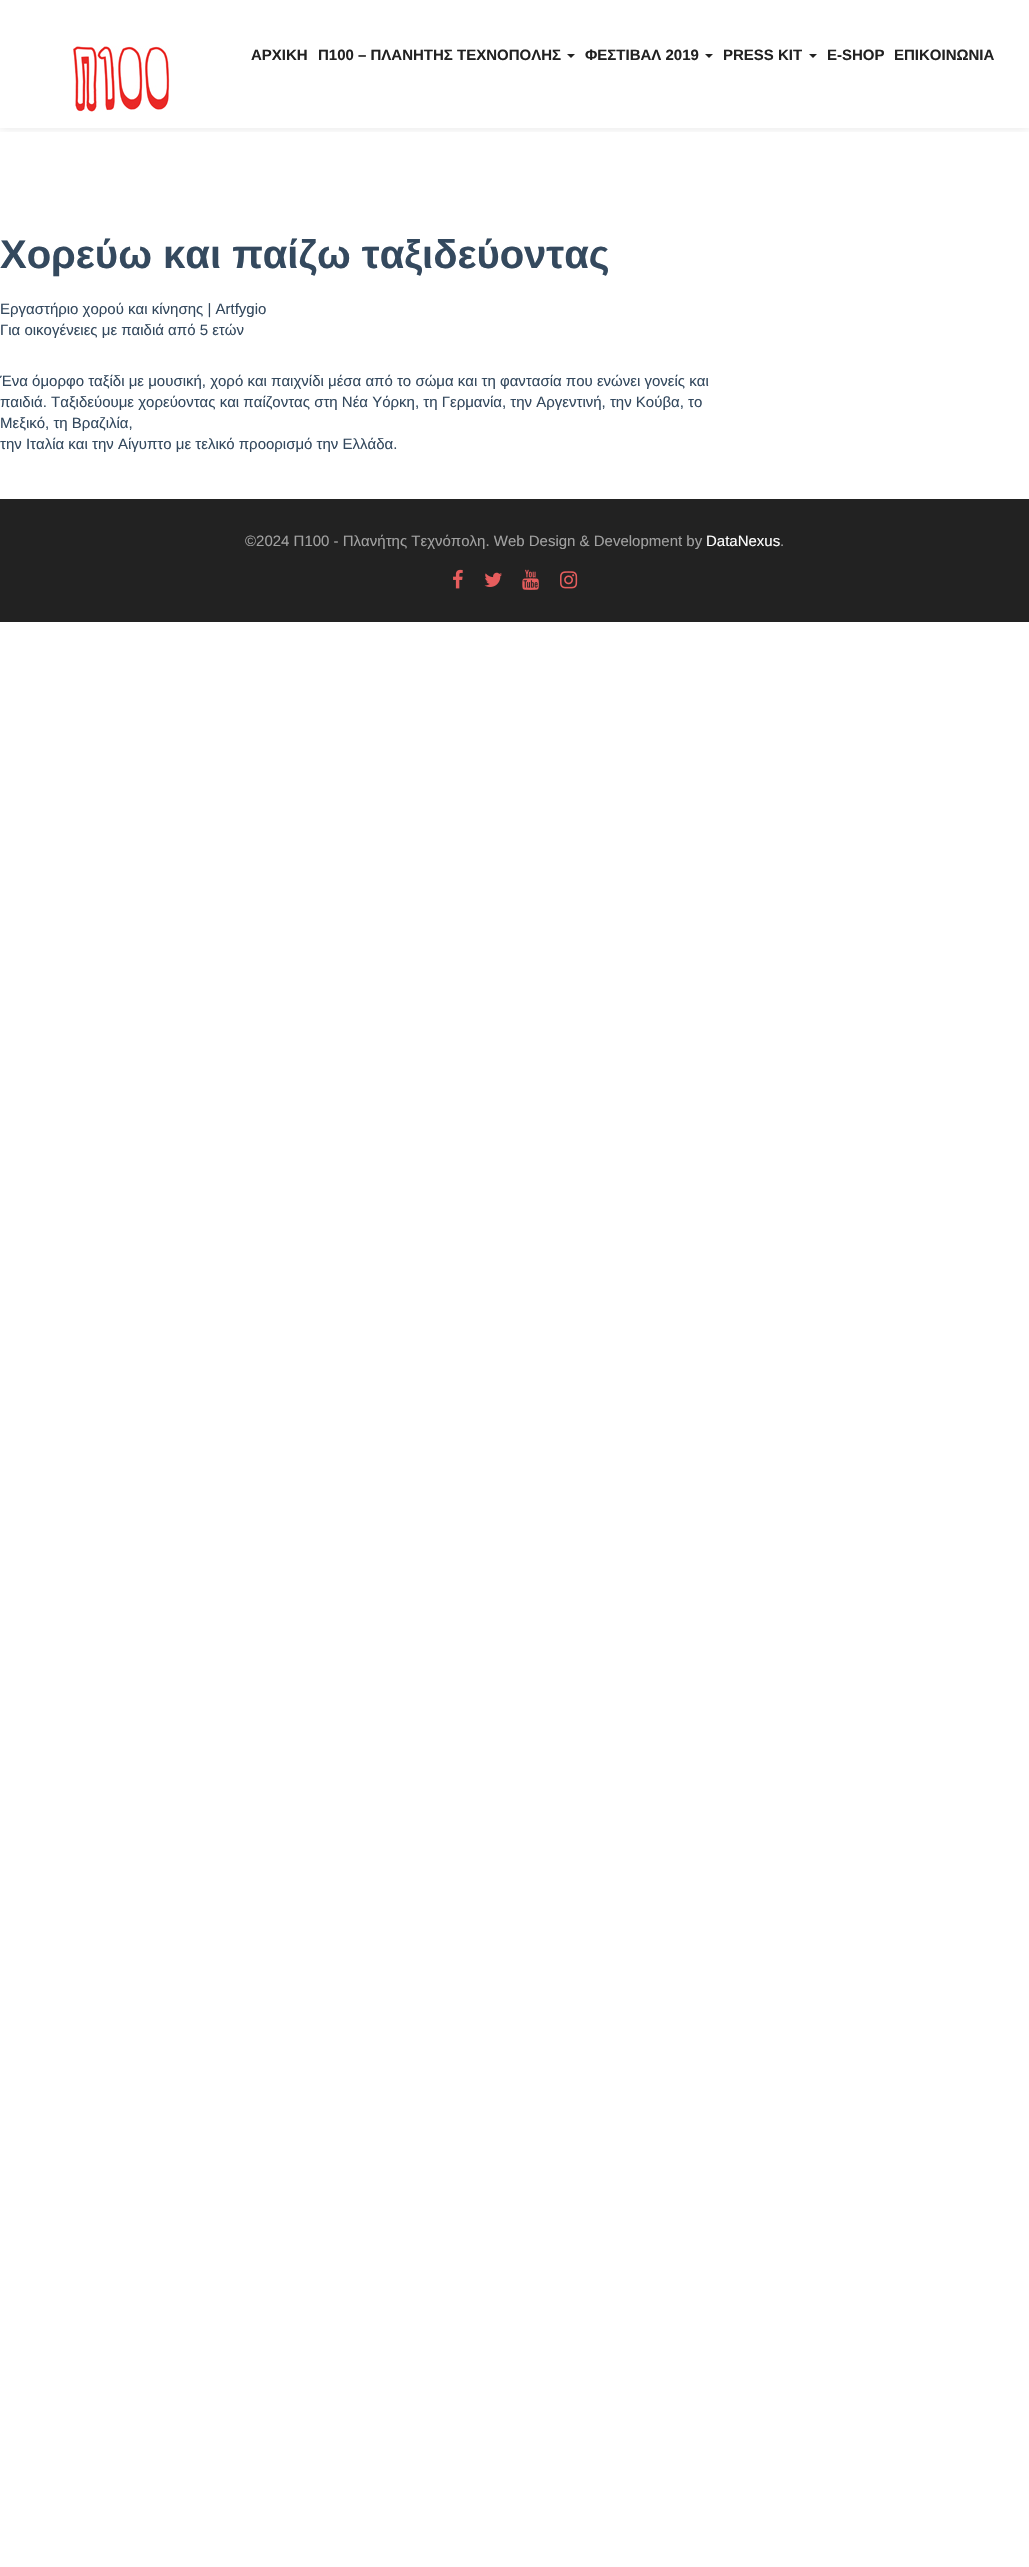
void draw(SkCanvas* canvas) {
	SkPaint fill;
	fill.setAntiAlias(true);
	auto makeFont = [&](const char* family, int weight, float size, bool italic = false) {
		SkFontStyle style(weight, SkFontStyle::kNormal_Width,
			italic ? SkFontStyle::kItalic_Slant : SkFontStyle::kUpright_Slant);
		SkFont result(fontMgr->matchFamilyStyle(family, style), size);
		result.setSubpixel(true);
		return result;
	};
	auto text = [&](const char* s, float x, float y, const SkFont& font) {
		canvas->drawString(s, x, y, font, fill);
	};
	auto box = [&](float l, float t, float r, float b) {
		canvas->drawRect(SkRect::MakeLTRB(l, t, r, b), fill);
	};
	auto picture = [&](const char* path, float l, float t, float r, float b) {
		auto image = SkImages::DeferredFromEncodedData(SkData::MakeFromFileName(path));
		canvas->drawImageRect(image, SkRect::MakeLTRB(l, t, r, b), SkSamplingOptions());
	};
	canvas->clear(0xFFFFFFFF);
	canvas->save();
	canvas->clipRect(SkRect::MakeLTRB(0, 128, 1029, 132));
	fill.setColor(0x1A000000);
	fill.setMaskFilter(SkMaskFilter::MakeBlur(kNormal_SkBlurStyle, 5));
	canvas->drawRect(SkRect::MakeLTRB(0, 0, 1029, 128), fill);
	fill.setMaskFilter(nullptr);
	canvas->restore();
	picture("image0.png", 73, 46, 170, 112);
	fill.setColor(0xFF222222);
	canvas->drawPath(SkPathBuilder().moveTo(567, 54).lineTo(575, 54).lineTo(571, 58).close().detach(), fill);
	canvas->drawPath(SkPathBuilder().moveTo(705, 54).lineTo(713, 54).lineTo(709, 58).close().detach(), fill);
	canvas->drawPath(SkPathBuilder().moveTo(809, 54).lineTo(817, 54).lineTo(813, 58).close().detach(), fill);
	box(0, 499, 1029, 622);
	picture("image1.png", 453, 569, 463, 589);
	picture("image2.png", 484, 572, 502, 587);
	picture("image3.png", 522, 569, 539, 590);
	picture("image4.png", 560, 571, 578, 589);
	auto font1 = makeFont("Liberation Sans", 700, 15);
	text("ΑΡΧΙΚΗ", 251, 60, font1);
	text("Π100 – ΠΛΑΝΗΤΗΣ ΤΕΧΝΟΠΟΛΗΣ", 318, 60, font1);
	text("ΦΕΣΤΙΒΑΛ 2019", 585, 60, font1);
	text("PRESS KIT", 723, 60, font1);
	text("E-SHOP", 827, 60, font1);
	text("ΕΠΙΚΟΙΝΩΝΙΑ", 894, 60, font1);
	auto font2 = makeFont("Liberation Sans", 700, 40);
	fill.setColor(0xFF34495E);
	text("Χορεύω και παίζω ταξιδεύοντας", 0, 268, font2);
	auto font3 = makeFont("Liberation Sans", 400, 15);
	text("Εργαστήριο χορού και κίνησης | Artfygio", 0, 314, font3);
	text("Για οικογένειες με παιδιά από 5 ετών", 0, 335, font3);
	text("Ένα όμορφο ταξίδι με μουσική, χορό και παιχνίδι μέσα από το σώμα και τη φαντασία που ενώνει γονείς και", 0, 386, font3);
	text("παιδιά. Ταξιδεύουμε χορεύοντας και παίζοντας στη Νέα Υόρκη, τη Γερμανία, την Αργεντινή, την Κούβα, το", 0, 407, font3);
	text("Μεξικό, τη Βραζιλία,", 0, 428, font3);
	text("την Ιταλία και την Αίγυπτο με τελικό προορισμό την Ελλάδα.", 0, 449, font3);
	fill.setColor(0xFFA1A1A1);
	text("©2024 Π100 - Πλανήτης Τεχνόπολη. Web Design & Development by", 245, 546, font3);
	fill.setColor(0xFFFFFFFF);
	text("DataNexus", 706, 546, font3);
	fill.setColor(0xFFA1A1A1);
	text(".", 780, 546, font3);
}
